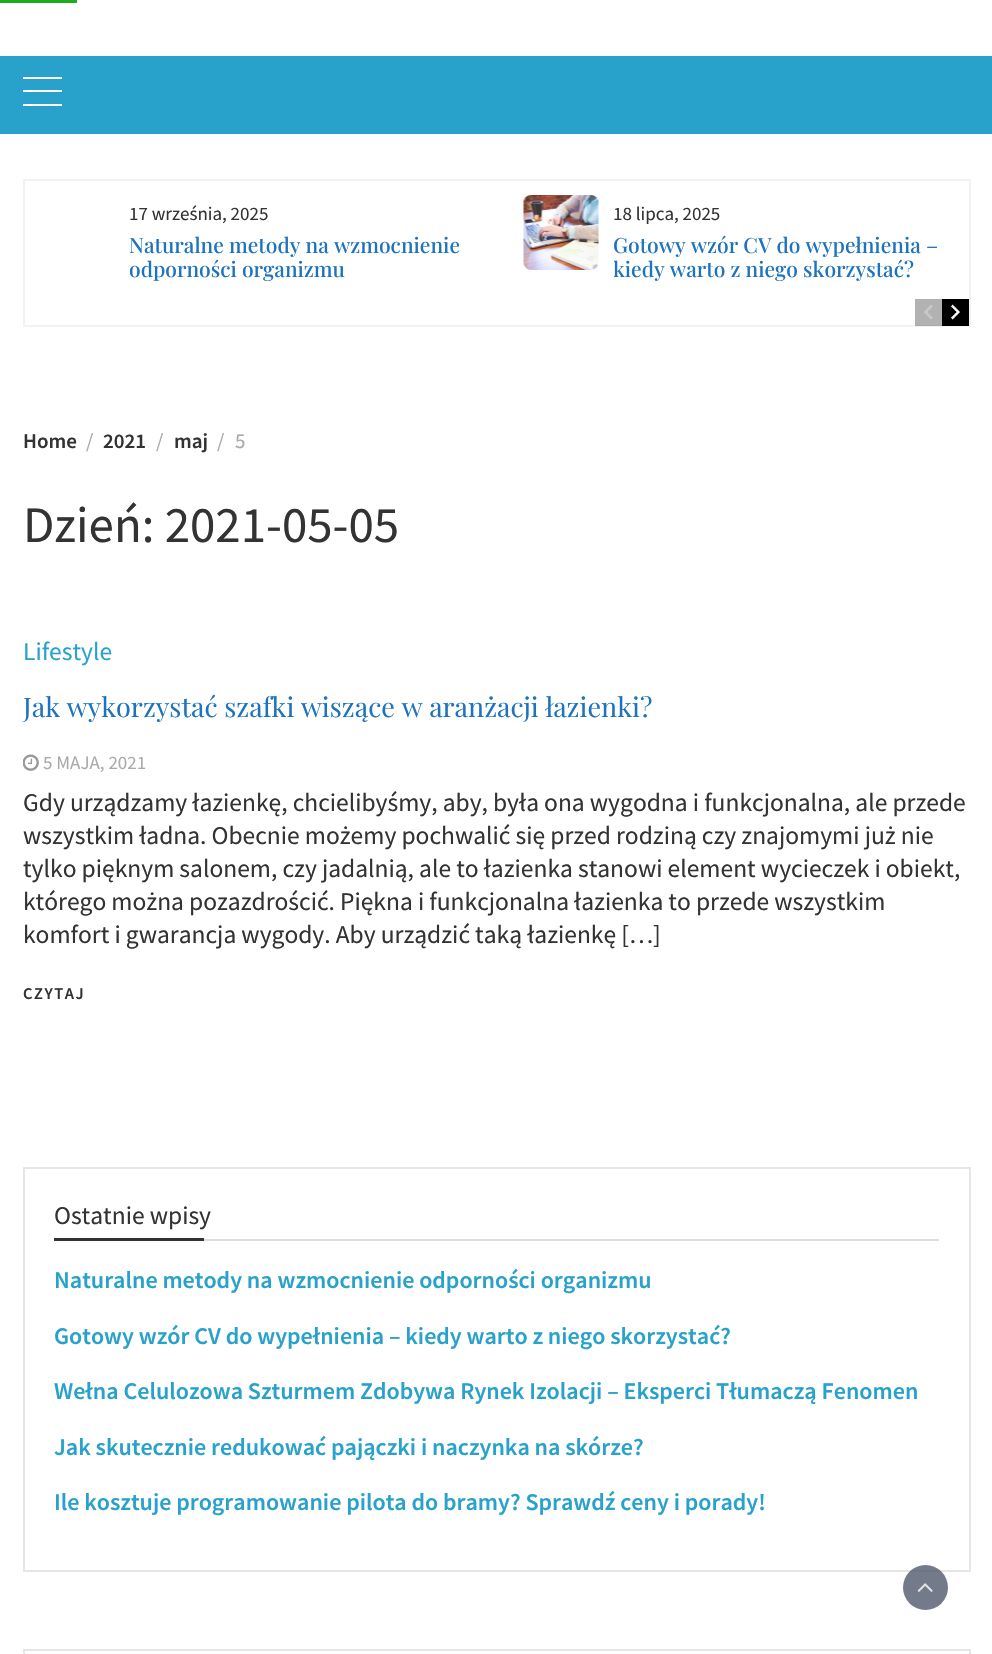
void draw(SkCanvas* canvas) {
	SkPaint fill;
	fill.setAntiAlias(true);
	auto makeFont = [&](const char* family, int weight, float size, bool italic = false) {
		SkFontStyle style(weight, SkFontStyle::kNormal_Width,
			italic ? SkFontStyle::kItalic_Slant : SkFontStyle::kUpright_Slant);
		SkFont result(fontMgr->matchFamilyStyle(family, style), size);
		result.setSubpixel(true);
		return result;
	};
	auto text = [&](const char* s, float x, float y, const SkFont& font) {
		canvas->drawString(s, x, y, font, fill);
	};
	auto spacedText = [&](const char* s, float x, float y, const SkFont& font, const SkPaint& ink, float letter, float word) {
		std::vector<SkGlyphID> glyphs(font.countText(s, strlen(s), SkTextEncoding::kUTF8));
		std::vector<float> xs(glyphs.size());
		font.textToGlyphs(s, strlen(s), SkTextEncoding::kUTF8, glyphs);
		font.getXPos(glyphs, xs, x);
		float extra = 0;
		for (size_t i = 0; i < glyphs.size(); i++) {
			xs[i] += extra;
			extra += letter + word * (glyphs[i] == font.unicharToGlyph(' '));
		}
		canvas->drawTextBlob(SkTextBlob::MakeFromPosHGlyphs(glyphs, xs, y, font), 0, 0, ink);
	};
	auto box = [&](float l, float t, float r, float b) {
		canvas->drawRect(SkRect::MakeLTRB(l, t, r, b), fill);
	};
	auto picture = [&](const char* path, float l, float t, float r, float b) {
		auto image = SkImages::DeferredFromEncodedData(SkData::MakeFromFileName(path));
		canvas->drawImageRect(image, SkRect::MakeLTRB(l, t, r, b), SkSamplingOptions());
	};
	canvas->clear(0xFFFFFFFF);
	fill.setColor(0xFF1BAD1B);
	box(0, 0, 77, 3);
	fill.setColor(0xFF29A2CB);
	box(0, 56, 992, 134);
	fill.setColor(0xFFFFFFFF);
	box(23, 77, 62, 79);
	box(23, 90, 62, 92);
	box(23, 104, 62, 106);
	fill.setStyle(SkPaint::kStroke_Style);
	fill.setStrokeWidth(2);
	fill.setColor(0xFFF2F2F2);
	canvas->drawRect(SkRect::MakeLTRB(24, 180, 970, 326), fill);
	picture("image0.png", 523, 195, 599, 270);
	fill.setStyle(SkPaint::kFill_Style);
	fill.setColor(0x4D000000);
	box(915, 299, 942, 326);
	picture("image1.png", 924, 305, 933, 319);
	fill.setColor(0xFF000000);
	box(942, 299, 969, 326);
	picture("image2.png", 951, 304, 960, 320);
	picture("image3.png", 23, 754, 39, 771);
	fill.setStyle(SkPaint::kStroke_Style);
	fill.setColor(0xFFE6E6E6);
	canvas->drawRect(SkRect::MakeLTRB(24, 1168, 970, 1571), fill);
	fill.setStyle(SkPaint::kFill_Style);
	fill.setColor(0xFFDEDEDE);
	box(204, 1239, 939, 1241);
	fill.setColor(0xFF333333);
	box(54, 1238, 204, 1241);
	fill.setStyle(SkPaint::kStroke_Style);
	fill.setColor(0xFFE6E6E6);
	canvas->drawRect(SkRect::MakeLTRB(24, 1650, 970, 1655), fill);
	fill.setStyle(SkPaint::kFill_Style);
	fill.setColor(0xCC50596C);
	canvas->drawCircle(925.5f, 1587.5f, 22.5f, fill);
	picture("image4.png", 917, 1583, 933, 1592);
	auto font1 = makeFont("Source Sans Pro", 400, 19);
	fill.setColor(0xFF333333);
	text("17 września, 2025", 129, 220, font1);
	auto font2 = makeFont("Playfair Display", 500, 21);
	fill.setColor(0xFF1E73BE);
	text("Naturalne metody na wzmocnienie", 129, 253, font2);
	text("odporności organizmu", 129, 277, font2);
	fill.setColor(0xFF333333);
	text("18 lipca, 2025", 613, 220, font1);
	canvas->save();
	canvas->clipRect(SkRect::MakeLTRB(614, 195, 954, 287));
	fill.setColor(0xFF1E73BE);
	text("Gotowy wzór CV do wypełnienia –", 613, 253, font2);
	text("kiedy warto z niego skorzystać?", 613, 277, font2);
	canvas->restore();
	auto font3 = makeFont("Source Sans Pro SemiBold", 600, 21);
	fill.setColor(0xFF333333);
	text("Home", 23, 448, font3);
	auto font4 = makeFont("Source Sans Pro", 400, 21);
	fill.setColor(0xFFAAAAAA);
	text("/", 86, 448, font4);
	fill.setColor(0xFF333333);
	text("2021", 103, 448, font3);
	fill.setColor(0xFFAAAAAA);
	text("/", 156, 448, font4);
	fill.setColor(0xFF333333);
	text("maj", 174, 448, font3);
	fill.setColor(0xFFAAAAAA);
	text("/", 217, 448, font4);
	text("5", 235, 448, font4);
	auto font5 = makeFont("Source Sans Pro", 400, 51);
	fill.setColor(0xFF333333);
	text("Dzień: 2021-05-05", 23, 542, font5);
	auto font6 = makeFont("Source Sans Pro", 400, 25.5f);
	fill.setColor(0xFF29A2CB);
	text("Lifestyle", 23, 660, font6);
	auto font7 = makeFont("Playfair Display", 400, 27);
	fill.setColor(0xFF1E73BE);
	text("Jak wykorzystać szafki wiszące w aranżacji łazienki?", 23, 717, font7);
	fill.setColor(0xFFAAAAAA);
	text("5 MAJA, 2021", 43, 769, font1);
	fill.setColor(0xFF333333);
	text("Gdy urządzamy łazienkę, chcielibyśmy, aby, była ona wygodna i funkcjonalna, ale przede", 23, 811, font6);
	text("wszystkim ładna. Obecnie możemy pochwalić się przed rodziną czy znajomymi już nie", 23, 844, font6);
	text("tylko pięknym salonem, czy jadalnią, ale to łazienka stanowi element wycieczek i obiekt,", 23, 877, font6);
	text("którego można pozazdrościć. Piękna i funkcjonalna łazienka to przede wszystkim", 23, 910, font6);
	text("komfort i gwarancja wygody. Aby urządzić taką łazienkę […]", 23, 943, font6);
	auto font8 = makeFont("Source Sans Pro SemiBold", 600, 16.5f);
	spacedText("CZYTAJ", 23, 999, font8, fill, 1.5f, 0);
	text("Ostatnie wpisy", 54, 1224, font6);
	auto font9 = makeFont("Source Sans Pro SemiBold", 600, 24);
	fill.setColor(0xFF29A2CB);
	text("Naturalne metody na wzmocnienie odporności organizmu", 54, 1288, font9);
	text("Gotowy wzór CV do wypełnienia – kiedy warto z niego skorzystać?", 54, 1344, font9);
	text("Wełna Celulozowa Szturmem Zdobywa Rynek Izolacji – Eksperci Tłumaczą Fenomen", 54, 1399, font9);
	text("Jak skutecznie redukować pajączki i naczynka na skórze?", 54, 1455, font9);
	text("Ile kosztuje programowanie pilota do bramy? Sprawdź ceny i porady!", 54, 1510, font9);
}
